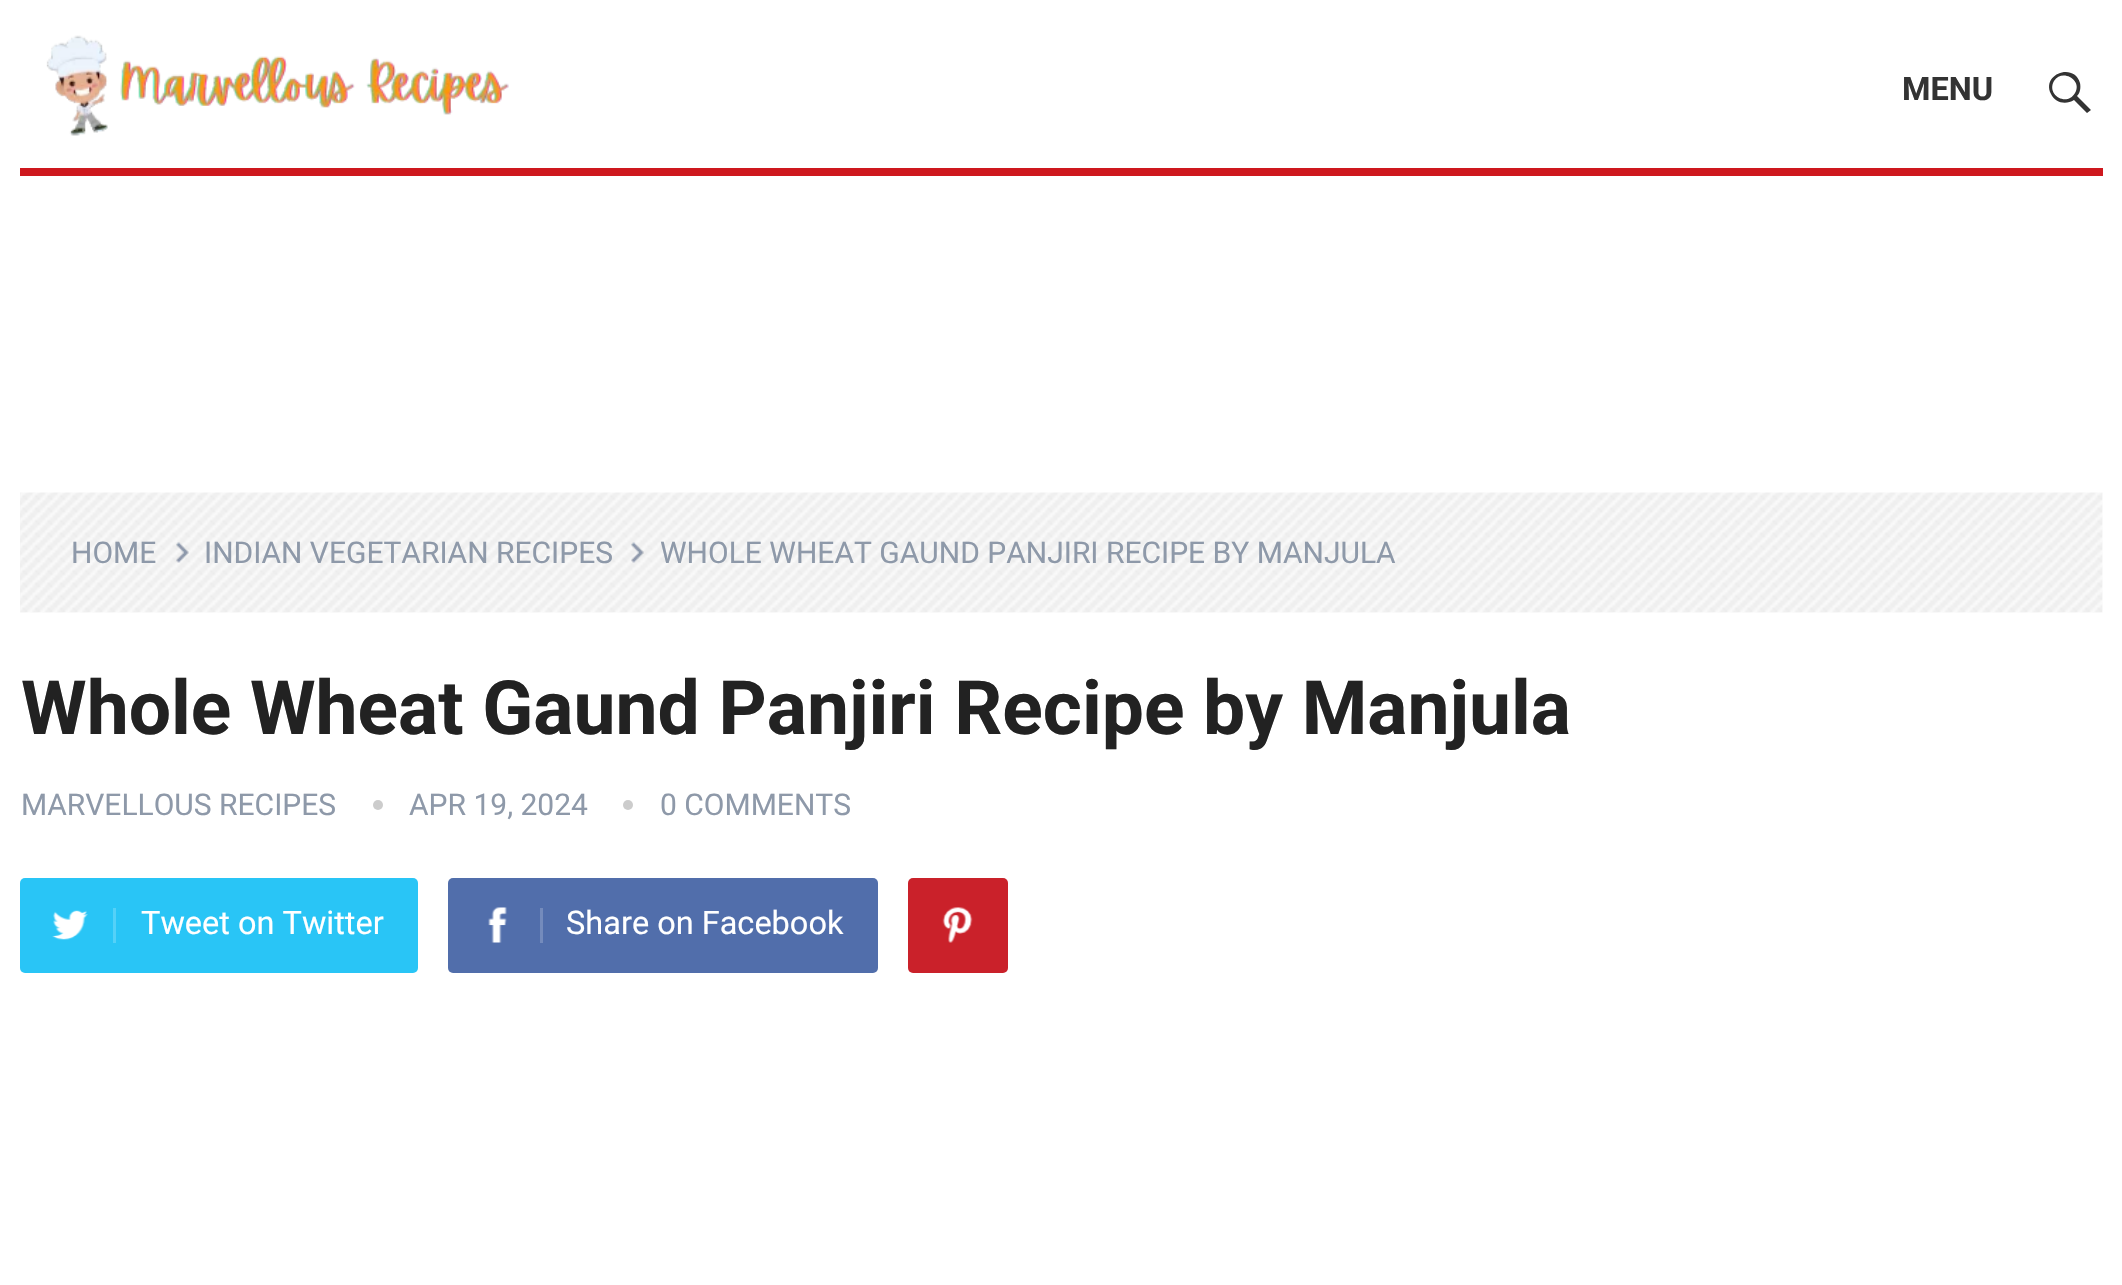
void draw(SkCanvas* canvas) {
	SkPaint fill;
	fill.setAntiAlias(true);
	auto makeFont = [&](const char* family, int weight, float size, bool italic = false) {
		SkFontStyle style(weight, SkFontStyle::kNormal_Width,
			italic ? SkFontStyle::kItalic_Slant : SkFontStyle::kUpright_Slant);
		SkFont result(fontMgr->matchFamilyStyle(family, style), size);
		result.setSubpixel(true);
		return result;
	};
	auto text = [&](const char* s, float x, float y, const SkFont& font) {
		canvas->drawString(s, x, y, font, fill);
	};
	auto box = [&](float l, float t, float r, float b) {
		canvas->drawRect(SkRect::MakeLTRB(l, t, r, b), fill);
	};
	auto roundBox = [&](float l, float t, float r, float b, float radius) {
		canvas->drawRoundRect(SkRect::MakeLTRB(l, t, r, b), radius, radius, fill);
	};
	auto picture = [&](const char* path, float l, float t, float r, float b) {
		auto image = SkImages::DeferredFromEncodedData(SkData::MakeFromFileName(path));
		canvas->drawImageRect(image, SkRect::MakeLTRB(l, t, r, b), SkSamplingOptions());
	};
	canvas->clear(0xFFFFFFFF);
	fill.setColor(0xFFCE181E);
	box(20, 168, 2103, 176);
	picture("image0.png", 46, 35, 509, 136);
	fill.setColor(0xFF333333);
	canvas->drawPath(SkPathBuilder().moveTo(2091, 110).lineTo(2087, 113).lineTo(2074, 100).cubicTo(2066, 105, 2055, 103, 2051, 94).cubicTo(2041, 74, 2074, 62, 2080, 83).cubicTo(2081, 88, 2080, 93, 2077, 96).close().moveTo(2054, 81).cubicTo(2046, 95, 2067, 107, 2075, 93).cubicTo(2083, 80, 2062, 68, 2054, 81).close().detach(), fill);
	picture("image1.png", 20, 492, 2103, 613);
	picture("image2.png", 176, 542, 189, 563);
	picture("image3.png", 631, 542, 644, 563);
	fill.setColor(0xFFCCCCCC);
	canvas->drawCircle(378, 805, 5, fill);
	canvas->drawCircle(628, 805, 5, fill);
	fill.setColor(0xFF29C5F6);
	roundBox(20, 878, 418, 973, 5);
	picture("image4.png", 52, 910, 88, 940);
	fill.setColor(0xFF54D1F8);
	box(113, 908, 116, 943);
	fill.setColor(0xFF516EAB);
	roundBox(448, 878, 878, 973, 5);
	picture("image5.png", 488, 907, 507, 943);
	fill.setColor(0xFF748BBC);
	box(540, 908, 543, 943);
	fill.setColor(0xFFCA212A);
	roundBox(908, 878, 1008, 973, 5);
	picture("image6.png", 942, 907, 973, 943);
	auto font1 = makeFont("Roboto", 700, 32.5f);
	fill.setColor(0xFF333333);
	text("MENU", 1902, 100, font1);
	auto font2 = makeFont("Roboto", 400, 30);
	fill.setColor(0xFF8E99A9);
	text("HOME", 71, 563, font2);
	text("INDIAN VEGETARIAN RECIPES", 204, 563, font2);
	text("WHOLE WHEAT GAUND PANJIRI RECIPE BY MANJULA", 660, 563, font2);
	auto font3 = makeFont("Roboto", 700, 75);
	fill.setColor(0xFF222222);
	text("Whole Wheat Gaund Panjiri Recipe by Manjula", 21, 734, font3);
	fill.setColor(0xFF8E99A9);
	text("MARVELLOUS RECIPES", 21, 815, font2);
	text("APR 19, 2024", 409, 815, font2);
	text("0 COMMENTS", 660, 815, font2);
	auto font4 = makeFont("Roboto", 400, 32.5f);
	fill.setColor(0xFFFFFFFF);
	text("Tweet on Twitter", 141, 934, font4);
	text("Share on Facebook", 566, 934, font4);
}
